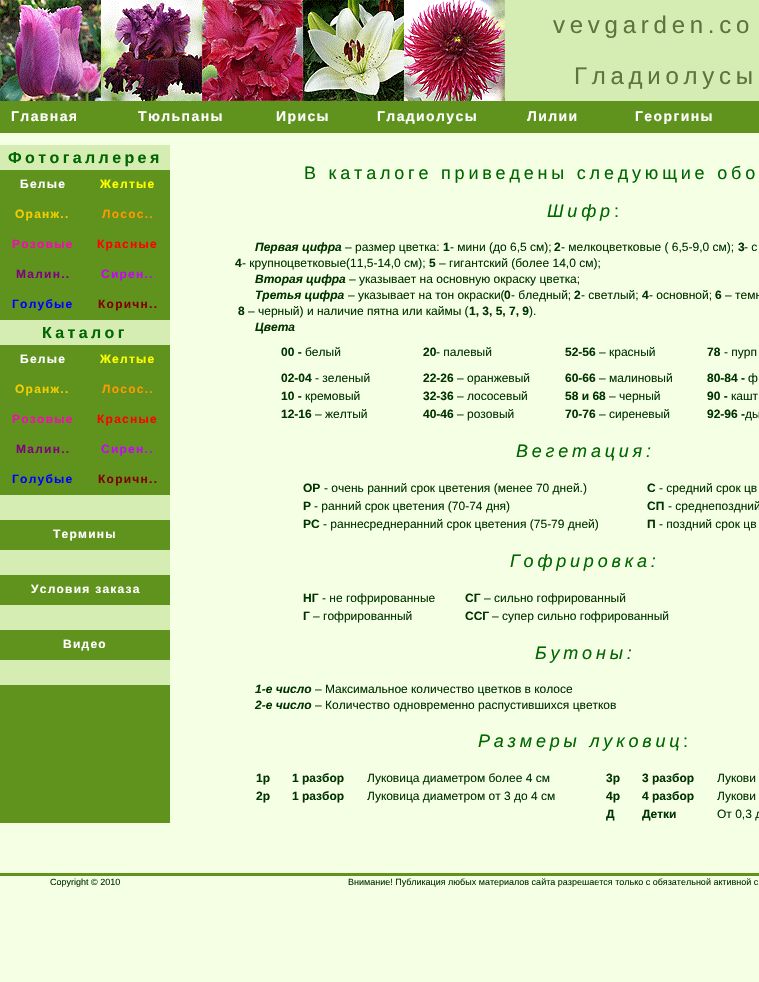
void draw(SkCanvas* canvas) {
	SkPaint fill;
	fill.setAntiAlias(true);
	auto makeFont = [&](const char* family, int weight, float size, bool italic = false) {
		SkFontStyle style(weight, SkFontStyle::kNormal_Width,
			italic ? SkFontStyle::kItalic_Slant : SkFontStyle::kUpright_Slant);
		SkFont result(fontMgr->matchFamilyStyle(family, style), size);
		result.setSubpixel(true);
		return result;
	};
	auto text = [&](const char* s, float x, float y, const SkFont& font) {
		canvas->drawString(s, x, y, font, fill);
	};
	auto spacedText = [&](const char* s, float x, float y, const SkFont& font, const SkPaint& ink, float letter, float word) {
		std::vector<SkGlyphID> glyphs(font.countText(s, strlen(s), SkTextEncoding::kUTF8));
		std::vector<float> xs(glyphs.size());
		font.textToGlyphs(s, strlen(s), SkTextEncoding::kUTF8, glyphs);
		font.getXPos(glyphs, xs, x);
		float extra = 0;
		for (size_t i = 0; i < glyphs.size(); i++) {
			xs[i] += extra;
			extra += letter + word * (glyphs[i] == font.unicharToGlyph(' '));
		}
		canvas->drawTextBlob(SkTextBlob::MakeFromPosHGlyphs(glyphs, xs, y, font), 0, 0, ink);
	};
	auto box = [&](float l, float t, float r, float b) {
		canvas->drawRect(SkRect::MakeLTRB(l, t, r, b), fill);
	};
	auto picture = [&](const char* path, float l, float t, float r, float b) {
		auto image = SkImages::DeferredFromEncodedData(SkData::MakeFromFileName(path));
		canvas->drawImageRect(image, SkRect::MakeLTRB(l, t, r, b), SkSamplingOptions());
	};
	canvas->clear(0xFFF4FFE4);
	fill.setColor(0xFFD5EDB3);
	box(505, 0, 759, 101);
	picture("image0.png", 0, 0, 505, 101);
	fill.setColor(0xFF5F931E);
	box(0, 101, 759, 133);
	box(0, 170, 170, 823);
	fill.setColor(0xFFD5EDB3);
	box(0, 145, 170, 170);
	box(0, 320, 170, 345);
	box(0, 495, 170, 520);
	box(0, 550, 170, 575);
	box(0, 605, 170, 630);
	box(0, 660, 170, 685);
	fill.setColor(0xFF5F931E);
	box(0, 873, 759, 876);
	auto font1 = makeFont("Liberation Sans", 400, 24);
	fill.setColor(0xFF5C743D);
	spacedText("vevgarden.co", 553, 33, font1, fill, 4.75f, 0);
	spacedText("Гладиолусы", 574, 84, font1, fill, 4.75f, 0);
	auto font2 = makeFont("Liberation Sans", 700, 14);
	fill.setColor(0xFFFFFFFF);
	spacedText("Главная", 11, 121, font2, fill, 1.4f, 0);
	spacedText("Тюльпаны", 138, 121, font2, fill, 1.4f, 0);
	spacedText("Ирисы", 276, 121, font2, fill, 1.4f, 0);
	spacedText("Гладиолусы", 377, 121, font2, fill, 1.4f, 0);
	spacedText("Лилии", 527, 121, font2, fill, 1.4f, 0);
	spacedText("Георгины", 635, 121, font2, fill, 1.4f, 0);
	auto font3 = makeFont("Liberation Sans", 700, 16);
	fill.setColor(0xFF006600);
	spacedText("Фотогаллерея", 8, 163, font3, fill, 3.4f, 0);
	auto font4 = makeFont("Liberation Sans", 700, 12);
	fill.setColor(0xFFFFFFFF);
	spacedText("Белые", 20, 188, font4, fill, 1.25f, 0);
	fill.setColor(0xFFFFFF00);
	spacedText("Желтые", 100, 188, font4, fill, 1.25f, 0);
	fill.setColor(0xFFF3CE00);
	spacedText("Оранж..", 15, 218, font4, fill, 1.25f, 0);
	fill.setColor(0xFFFF9900);
	spacedText("Лосос..", 102, 218, font4, fill, 1.25f, 0);
	fill.setColor(0xFFFB06B3);
	spacedText("Розовые", 12, 248, font4, fill, 1.25f, 0);
	fill.setColor(0xFFFF0000);
	spacedText("Красные", 97, 248, font4, fill, 1.25f, 0);
	fill.setColor(0xFF800080);
	spacedText("Малин..", 16, 278, font4, fill, 1.25f, 0);
	fill.setColor(0xFFCC00FF);
	spacedText("Сирен..", 101, 278, font4, fill, 1.25f, 0);
	fill.setColor(0xFF0000FF);
	spacedText("Голубые", 12, 308, font4, fill, 1.25f, 0);
	fill.setColor(0xFF800000);
	spacedText("Коричн..", 98, 308, font4, fill, 1.25f, 0);
	fill.setColor(0xFF006600);
	spacedText("Каталог", 42, 338, font3, fill, 3.4f, 0);
	fill.setColor(0xFFFFFFFF);
	spacedText("Белые", 20, 363, font4, fill, 1.25f, 0);
	fill.setColor(0xFFFFFF00);
	spacedText("Желтые", 100, 363, font4, fill, 1.25f, 0);
	fill.setColor(0xFFF3CE00);
	spacedText("Оранж..", 15, 393, font4, fill, 1.25f, 0);
	fill.setColor(0xFFFF9900);
	spacedText("Лосос..", 102, 393, font4, fill, 1.25f, 0);
	fill.setColor(0xFFFB06B3);
	spacedText("Розовые", 12, 423, font4, fill, 1.25f, 0);
	fill.setColor(0xFFFF0000);
	spacedText("Красные", 97, 423, font4, fill, 1.25f, 0);
	fill.setColor(0xFF800080);
	spacedText("Малин..", 16, 453, font4, fill, 1.25f, 0);
	fill.setColor(0xFFCC00FF);
	spacedText("Сирен..", 101, 453, font4, fill, 1.25f, 0);
	fill.setColor(0xFF0000FF);
	spacedText("Голубые", 12, 483, font4, fill, 1.25f, 0);
	fill.setColor(0xFF800000);
	spacedText("Коричн..", 98, 483, font4, fill, 1.25f, 0);
	fill.setColor(0xFFFFFFFF);
	spacedText("Термины", 53, 538, font4, fill, 1.25f, 0);
	spacedText("Условия заказа", 31, 593, font4, fill, 1.25f, 0);
	spacedText("Видео", 63, 648, font4, fill, 1.25f, 0);
	auto font5 = makeFont("Liberation Sans", 400, 18);
	fill.setColor(0xFF006600);
	spacedText("В каталоге приведены следующие обо", 304, 179, font5, fill, 3.8f, 0);
	auto font6 = makeFont("Liberation Sans", 400, 18, true);
	spacedText("Шифр", 547, 217, font6, fill, 3.8f, 0);
	spacedText(":", 614, 217, font5, fill, 3.8f, 0);
	auto font7 = makeFont("Liberation Sans", 700, 12, true);
	fill.setColor(0xFF003300);
	text("Первая цифра", 255, 251, font7);
	auto font8 = makeFont("Liberation Sans", 400, 12);
	text("– размер цветка:", 345, 251, font8);
	text("1", 443, 251, font4);
	text("- мини (до 6,5 см);", 450, 251, font8);
	text("2", 554, 251, font4);
	text("- мелкоцветковые ( 6,5-9,0 см);", 561, 251, font8);
	text("3", 738, 251, font4);
	text("- с", 744, 251, font8);
	text("4", 235, 267, font4);
	text("- крупноцветковые(11,5-14,0 см);", 242, 267, font8);
	text("5", 429, 267, font4);
	text("– гигантский (более 14,0 см);", 439, 267, font8);
	text("Вторая цифра", 255, 283, font7);
	text("– указывает на основную окраску цветка;", 349, 283, font8);
	text("Третья цифра", 255, 299, font7);
	text("– указывает на тон окраски(", 348, 299, font8);
	text("0", 504, 299, font4);
	text("- бледный;", 511, 299, font8);
	text("2", 574, 299, font4);
	text("- светлый;", 581, 299, font8);
	text("4", 642, 299, font4);
	text("- основной;", 649, 299, font8);
	text("6", 715, 299, font4);
	text("– темн", 725, 299, font8);
	text("8", 238, 315, font4);
	text("– черный) и наличие пятна или каймы (", 248, 315, font8);
	text("1, 3, 5, 7, 9", 469, 315, font4);
	text(").", 529, 315, font8);
	text("Цвета", 255, 331, font7);
	text("00 -", 281, 356, font4);
	text("белый", 305, 356, font8);
	text("20", 423, 356, font4);
	text("- палевый", 436, 356, font8);
	text("52-56", 565, 356, font4);
	text("– красный", 599, 356, font8);
	text("78", 707, 356, font4);
	text("- пурп", 724, 356, font8);
	text("02-04", 281, 382, font4);
	text("- зеленый", 315, 382, font8);
	text("22-26", 423, 382, font4);
	text("– оранжевый", 457, 382, font8);
	text("60-66", 565, 382, font4);
	text("– малиновый", 599, 382, font8);
	text("80-84 -", 707, 382, font4);
	text("ф", 748, 382, font8);
	text("10 -", 281, 400, font4);
	text("кремовый", 305, 400, font8);
	text("32-36", 423, 400, font4);
	text("– лососевый", 457, 400, font8);
	text("58 и 68", 565, 400, font4);
	text("– черный", 609, 400, font8);
	text("90 -", 707, 400, font4);
	text("кашт", 731, 400, font8);
	text("12-16", 281, 418, font4);
	text("– желтый", 315, 418, font8);
	text("40-46", 423, 418, font4);
	text("– розовый", 457, 418, font8);
	text("70-76", 565, 418, font4);
	text("– сиреневый", 599, 418, font8);
	text("92-96 -", 707, 418, font4);
	text("ды", 745, 418, font8);
	fill.setColor(0xFF006600);
	spacedText("Вегетация:", 516, 457, font6, fill, 3.8f, 0);
	fill.setColor(0xFF003300);
	text("ОР", 303, 492, font4);
	text("- очень ранний срок цветения (менее 70 дней.)", 324, 492, font8);
	text("С", 647, 492, font4);
	text("- cредний срок цв", 659, 492, font8);
	text("Р", 303, 510, font4);
	text("- pанний срок цветения (70-74 дня)", 314, 510, font8);
	text("СП", 647, 510, font4);
	text("- среднепоздний", 668, 510, font8);
	text("РС", 303, 528, font4);
	text("- раннесреднеранний срок цветения (75-79 дней)", 323, 528, font8);
	text("П", 647, 528, font4);
	text("- поздний срок цв", 659, 528, font8);
	fill.setColor(0xFF006600);
	spacedText("Гофрировка:", 510, 567, font6, fill, 3.8f, 0);
	fill.setColor(0xFF003300);
	text("НГ", 303, 602, font4);
	text("- не гофрированные", 322, 602, font8);
	text("СГ", 465, 602, font4);
	text("– сильно гофрированный", 484, 602, font8);
	text("Г", 303, 620, font4);
	text("– гофрированный", 313, 620, font8);
	text("ССГ", 465, 620, font4);
	text("– супер сильно гофрированный", 492, 620, font8);
	fill.setColor(0xFF006600);
	spacedText("Бутоны:", 535, 659, font6, fill, 3.8f, 0);
	fill.setColor(0xFF003300);
	text("1-е число", 255, 693, font7);
	text("– Максимальное количество цветков в колосе", 315, 693, font8);
	text("2-е число", 255, 709, font7);
	text("– Количество одновременно распустившихся цветков", 315, 709, font8);
	fill.setColor(0xFF006600);
	spacedText("Размеры луковиц", 478, 747, font6, fill, 3.8f, 0);
	spacedText(":", 683, 747, font5, fill, 3.8f, 0);
	fill.setColor(0xFF003300);
	text("1р", 256, 782, font4);
	text("1 разбор", 292, 782, font4);
	text("Луковица диаметром более 4 см", 367, 782, font8);
	text("3р", 606, 782, font4);
	text("3 разбор", 642, 782, font4);
	text("Лукови", 717, 782, font8);
	text("2р", 256, 800, font4);
	text("1 разбор", 292, 800, font4);
	text("Луковица диаметром от 3 до 4 см", 367, 800, font8);
	text("4р", 606, 800, font4);
	text("4 разбор", 642, 800, font4);
	text("Лукови", 717, 800, font8);
	text("Д", 606, 818, font4);
	text("Детки", 642, 818, font4);
	text("От 0,3 д", 717, 818, font8);
	auto font9 = makeFont("Liberation Sans", 400, 9);
	text("Copyright © 2010", 50, 885, font9);
	text("Внимание! Публикация любых материалов сайта разрешается только с обязательной активной с", 348, 885, font9);
}
